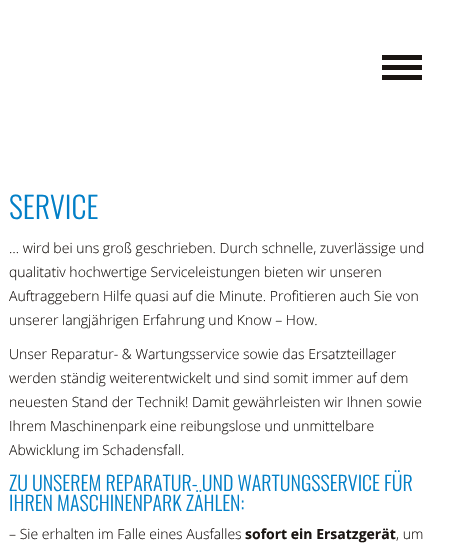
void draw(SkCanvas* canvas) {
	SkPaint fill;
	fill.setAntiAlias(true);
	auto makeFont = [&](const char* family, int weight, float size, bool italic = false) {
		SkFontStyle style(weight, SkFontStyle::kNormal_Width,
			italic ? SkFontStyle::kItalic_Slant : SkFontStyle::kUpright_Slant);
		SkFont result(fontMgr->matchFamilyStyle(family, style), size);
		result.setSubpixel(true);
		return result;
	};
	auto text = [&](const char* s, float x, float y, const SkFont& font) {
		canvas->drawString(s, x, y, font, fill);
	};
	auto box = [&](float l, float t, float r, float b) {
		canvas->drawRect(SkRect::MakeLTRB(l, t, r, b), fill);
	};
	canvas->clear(0xFFFFFFFF);
	fill.setColor(0xFF1A1512);
	box(382, 55, 422, 60);
	box(382, 65, 422, 70);
	box(382, 75, 422, 80);
	auto font1 = makeFont("Oswald", 300, 30);
	fill.setColor(0xFF027FC7);
	text("SERVICE", 9, 219, font1);
	auto font2 = makeFont("Open Sans", 300, 14);
	fill.setColor(0xFF1A1512);
	text("… wird bei uns groß geschrieben. Durch schnelle, zuverlässige und", 9, 253, font2);
	text("qualitativ hochwertige Serviceleistungen bieten wir unseren", 9, 277, font2);
	text("Auftraggebern Hilfe quasi auf die Minute. Profitieren auch Sie von", 9, 301, font2);
	text("unserer langjährigen Erfahrung und Know – How.", 9, 325, font2);
	text("Unser Reparatur- & Wartungsservice sowie das Ersatzteillager", 9, 359, font2);
	text("werden ständig weiterentwickelt und sind somit immer auf dem", 9, 383, font2);
	text("neuesten Stand der Technik! Damit gewährleisten wir Ihnen sowie", 9, 407, font2);
	text("Ihrem Maschinenpark eine reibungslose und unmittelbare", 9, 431, font2);
	text("Abwicklung im Schadensfall.", 9, 455, font2);
	auto font3 = makeFont("Oswald", 300, 20);
	fill.setColor(0xFF027FC7);
	text("ZU UNSEREM REPARATUR- UND WARTUNGSSERVICE FÜR", 9, 491, font3);
	text("IHREN MASCHINENPARK ZÄHLEN:", 9, 511, font3);
	fill.setColor(0xFF1A1512);
	text("– Sie erhalten im Falle eines Ausfalles", 9, 539, font2);
	auto font4 = makeFont("Open Sans", 700, 14);
	text("sofort ein Ersatzgerät", 245, 539, font4);
	text(", um", 396, 539, font2);
}
